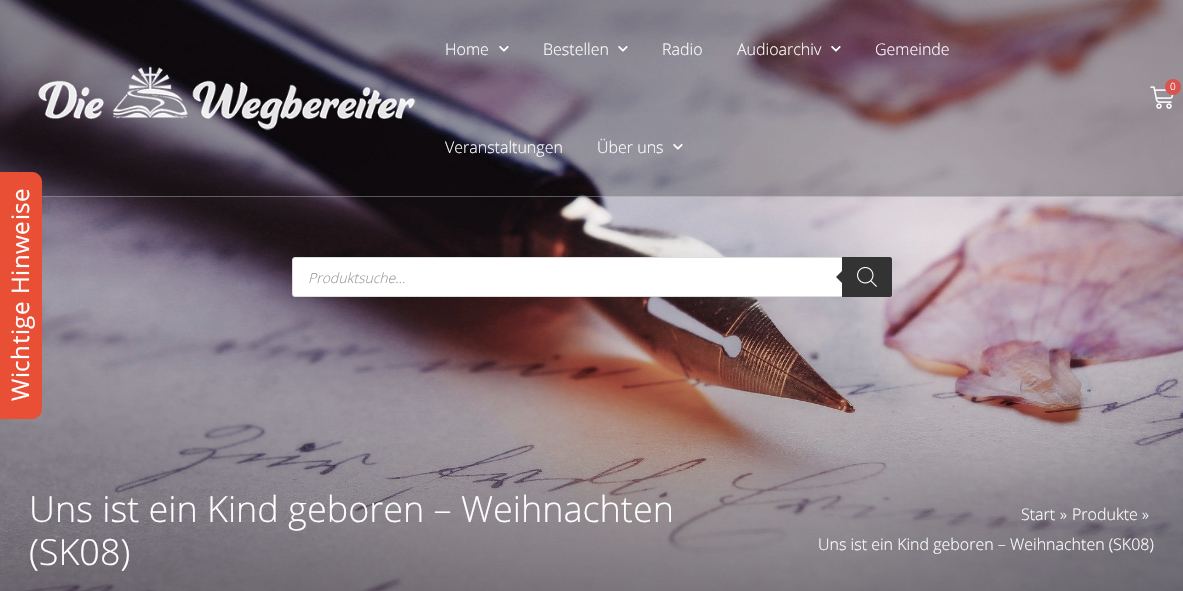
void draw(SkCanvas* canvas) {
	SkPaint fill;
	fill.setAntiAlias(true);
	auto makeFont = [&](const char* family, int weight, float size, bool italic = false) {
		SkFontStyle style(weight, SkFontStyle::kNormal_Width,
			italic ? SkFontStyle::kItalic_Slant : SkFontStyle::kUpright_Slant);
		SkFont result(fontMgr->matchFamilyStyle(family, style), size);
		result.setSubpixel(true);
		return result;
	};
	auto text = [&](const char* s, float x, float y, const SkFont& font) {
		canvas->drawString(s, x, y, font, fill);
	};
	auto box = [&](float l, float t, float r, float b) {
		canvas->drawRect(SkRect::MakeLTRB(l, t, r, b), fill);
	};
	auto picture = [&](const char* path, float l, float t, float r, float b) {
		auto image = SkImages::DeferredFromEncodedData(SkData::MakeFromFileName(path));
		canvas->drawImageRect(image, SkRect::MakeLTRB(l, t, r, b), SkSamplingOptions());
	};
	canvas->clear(0xFFFFFFFF);
	picture("image1.png", 0, 0, 1183, 591);
	fill.setColor(0x3B000000);
	box(0, 0, 1183, 197);
	picture("image0.png", 0, 172, 42, 419);
	fill.setColor(0x57EAEAEA);
	box(42, 196, 1183, 197);
	picture("image2.png", 38, 66, 416, 131);
	picture("image3.png", 499, 46, 509, 52);
	picture("image4.png", 618, 46, 628, 52);
	picture("image5.png", 831, 46, 841, 52);
	picture("image6.png", 673, 144, 683, 150);
	picture("image7.png", 1150, 86, 1174, 109);
	fill.setColor(0xFFD9534F);
	canvas->drawCircle(1173, 87, 8, fill);
	fill.setColor(0xFFFFFFFF);
	canvas->drawRoundRect(SkRect::MakeLTRB(292.5f, 257.5f, 891.5f, 296.5f), 2.5f, 2.5f, fill);
	fill.setStyle(SkPaint::kStroke_Style);
	fill.setStrokeWidth(1);
	fill.setColor(0xFFDDDDDD);
	canvas->drawRoundRect(SkRect::MakeLTRB(292.5f, 257.5f, 891.5f, 296.5f), 2.5f, 2.5f, fill);
	fill.setStyle(SkPaint::kFill_Style);
	fill.setColor(0xFF333333);
	canvas->drawPath(SkPathBuilder().moveTo(842, 257).lineTo(890, 257).cubicTo(891, 257, 892, 258, 892, 259).lineTo(892, 295).cubicTo(892, 296, 891, 297, 890, 297).lineTo(842, 297).close().detach(), fill);
	canvas->drawPath(SkPathBuilder().moveTo(844, 269).lineTo(844, 285).lineTo(836, 277).close().detach(), fill);
	picture("image8.png", 857, 267, 877, 287);
	auto font1 = makeFont("Open Sans", 300, 16);
	fill.setColor(0xFFFFFFFF);
	text("Home", 445, 55, font1);
	text("Bestellen", 543, 55, font1);
	text("Radio", 662, 55, font1);
	text("Audioarchiv", 737, 55, font1);
	text("Gemeinde", 875, 55, font1);
	text("Veranstaltungen", 445, 153, font1);
	text("Über uns", 597, 153, font1);
	auto font2 = makeFont("Open Sans", 300, 10);
	text("0", 1170, 90, font2);
	auto font3 = makeFont("Open Sans", 300, 14, true);
	fill.setColor(0xFF999999);
	text("Produktsuche...", 308, 283, font3);
	auto font4 = makeFont("Open Sans", 300, 36);
	fill.setColor(0xFFFFFFFF);
	text("Uns ist ein Kind geboren – Weihnachten", 29, 522, font4);
	text("(SK08)", 29, 565, font4);
	text("Start", 1021, 520, font1);
	text("»", 1060, 520, font1);
	text("Produkte", 1072, 520, font1);
	text("»", 1142, 520, font1);
	text("Uns ist ein Kind geboren – Weihnachten (SK08)", 818, 550, font1);
}
